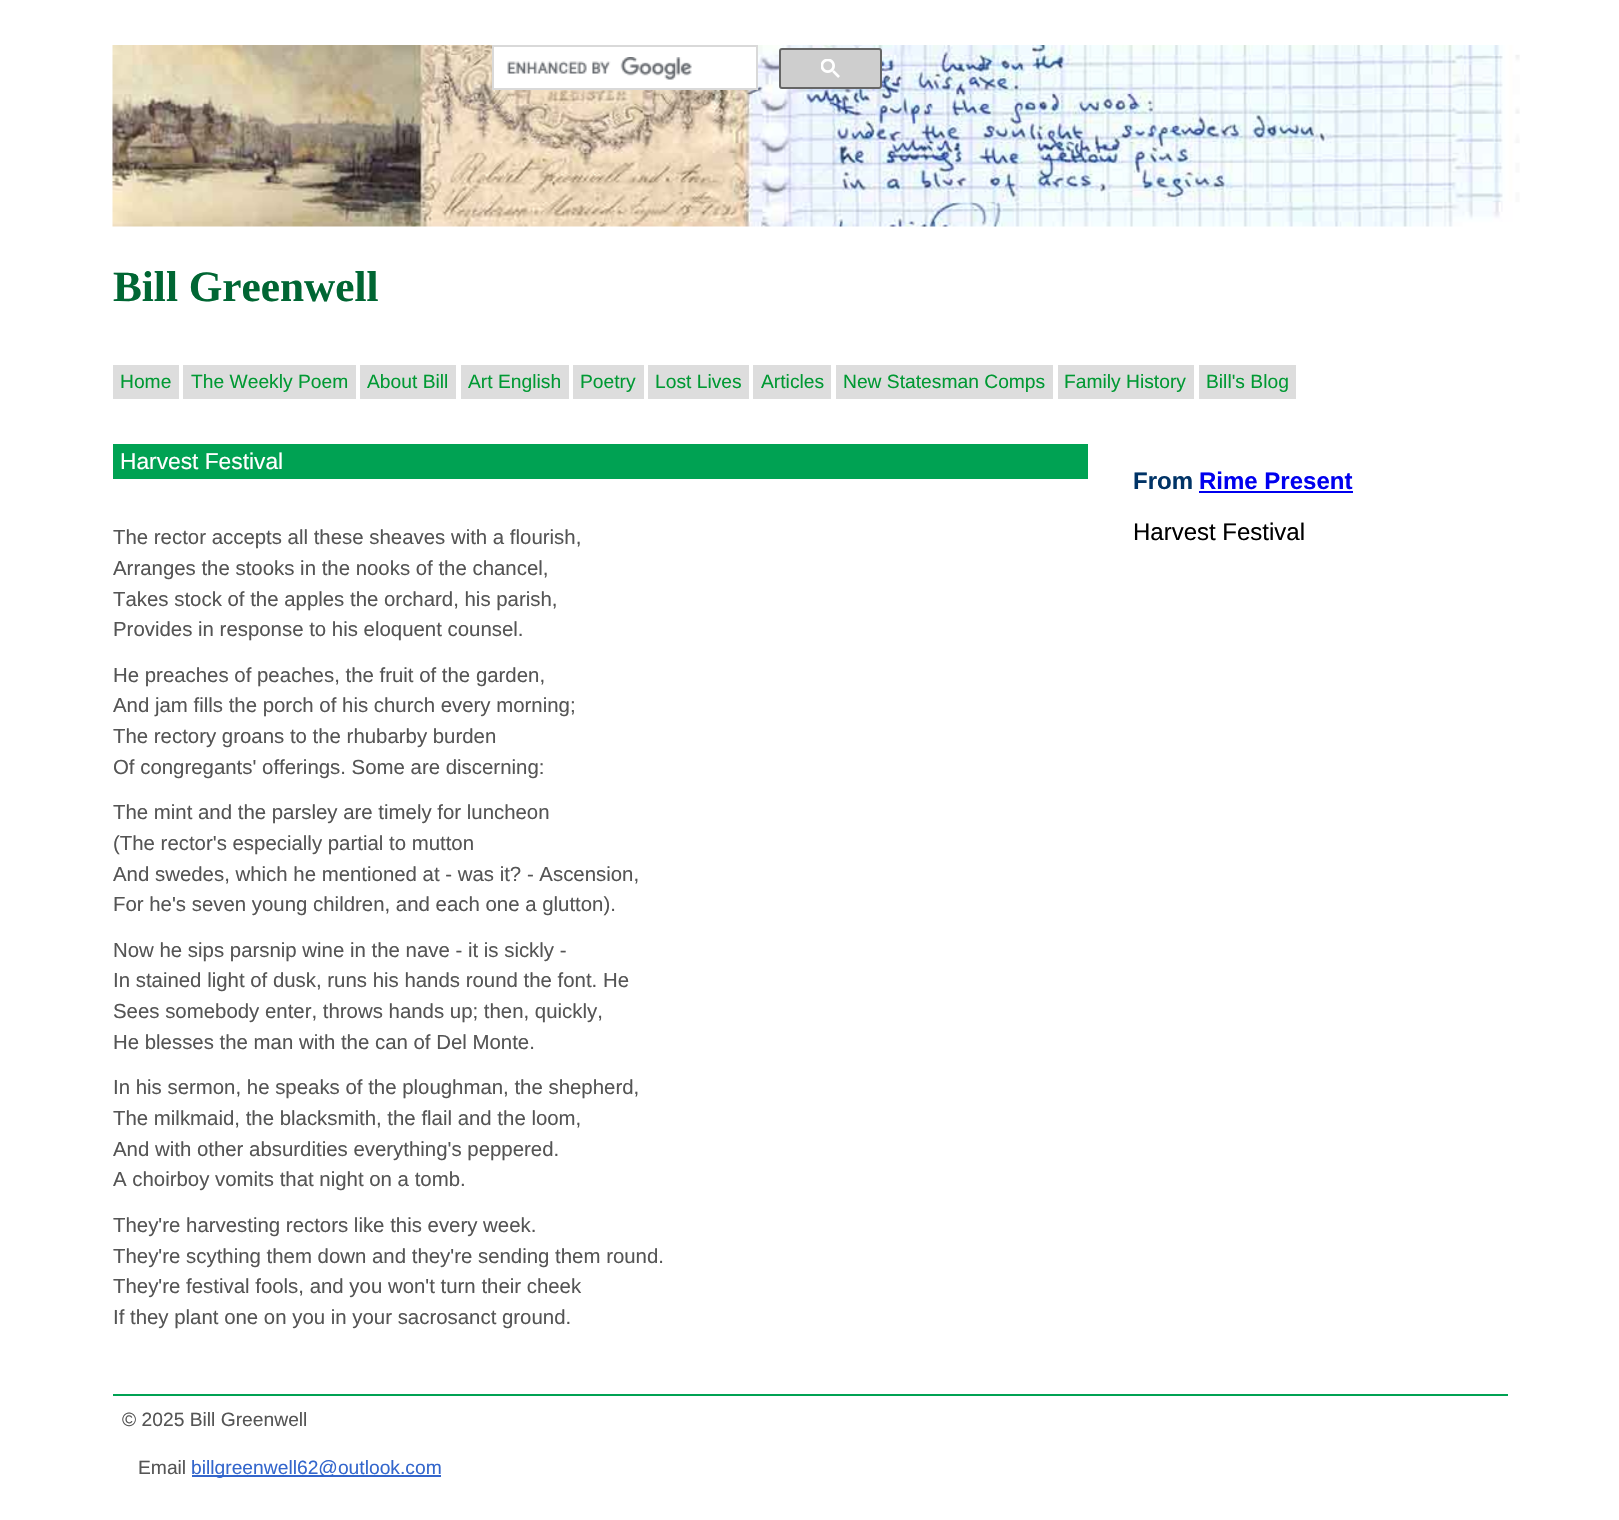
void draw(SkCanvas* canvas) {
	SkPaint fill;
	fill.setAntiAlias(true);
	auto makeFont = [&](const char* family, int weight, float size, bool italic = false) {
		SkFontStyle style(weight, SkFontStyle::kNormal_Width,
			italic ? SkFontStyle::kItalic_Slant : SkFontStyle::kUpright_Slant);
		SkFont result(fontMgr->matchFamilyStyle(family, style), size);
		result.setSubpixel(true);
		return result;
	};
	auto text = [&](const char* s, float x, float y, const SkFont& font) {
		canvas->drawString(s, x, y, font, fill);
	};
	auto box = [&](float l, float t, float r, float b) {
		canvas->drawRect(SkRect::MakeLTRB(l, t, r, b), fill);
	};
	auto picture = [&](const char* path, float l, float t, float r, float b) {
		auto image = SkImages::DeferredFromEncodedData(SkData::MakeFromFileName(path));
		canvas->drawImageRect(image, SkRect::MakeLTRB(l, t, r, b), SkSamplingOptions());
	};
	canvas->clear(0xFFFFFFFF);
	picture("image2.png", 112, 45, 1520, 227);
	fill.setColor(0xFFFFFFFF);
	canvas->drawRect(SkRect::MakeLTRB(493, 46, 757, 89), fill);
	fill.setStyle(SkPaint::kStroke_Style);
	fill.setStrokeWidth(2);
	fill.setColor(0xFFD9D9D9);
	canvas->drawRect(SkRect::MakeLTRB(493, 46, 757, 89), fill);
	picture("image0.png", 507, 57, 692, 80);
	fill.setStyle(SkPaint::kFill_Style);
	fill.setColor(0xFFCECECE);
	canvas->drawRoundRect(SkRect::MakeLTRB(780, 49, 881, 88), 2, 2, fill);
	fill.setStyle(SkPaint::kStroke_Style);
	fill.setColor(0xFF666666);
	canvas->drawRoundRect(SkRect::MakeLTRB(780, 49, 881, 88), 2, 2, fill);
	picture("image1.png", 821, 59, 840, 78);
	fill.setStyle(SkPaint::kFill_Style);
	fill.setColor(0xFFDDDDDD);
	box(113, 365, 179, 399);
	box(183, 365, 356, 399);
	box(360, 365, 456, 399);
	box(461, 365, 569, 399);
	box(573, 365, 644, 399);
	box(648, 365, 749, 399);
	box(753, 365, 831, 399);
	box(836, 365, 1053, 399);
	box(1058, 365, 1194, 399);
	box(1199, 365, 1296, 399);
	fill.setColor(0xFF00A253);
	box(113, 444, 1088, 479);
	fill.setColor(0xFF0000EE);
	box(1199, 491, 1353, 493);
	fill.setColor(0xFF00A253);
	box(113, 1394, 1508, 1396);
	fill.setColor(0xFF3366CC);
	box(192, 1475, 441, 1477);
	auto font1 = makeFont("Liberation Serif", 700, 43.25f);
	fill.setColor(0xFF006633);
	text("Bill Greenwell", 113, 301, font1);
	auto font2 = makeFont("Liberation Sans", 400, 19.25f);
	fill.setColor(0xFF009933);
	text("Home", 120, 388, font2);
	text("The Weekly Poem", 191, 388, font2);
	text("About Bill", 367, 388, font2);
	text("Art English", 468, 388, font2);
	text("Poetry", 580, 388, font2);
	text("Lost Lives", 655, 388, font2);
	text("Articles", 761, 388, font2);
	text("New Statesman Comps", 843, 388, font2);
	text("Family History", 1064, 388, font2);
	text("Bill's Blog", 1206, 388, font2);
	auto font3 = makeFont("Liberation Sans", 400, 22.75f);
	fill.setColor(0xFFFFFFFF);
	text("Harvest Festival", 120, 469, font3);
	auto font4 = makeFont("Liberation Sans", 400, 20.4f);
	fill.setColor(0xFF555555);
	text("The rector accepts all these sheaves with a flourish,", 113, 544, font4);
	text("Arranges the stooks in the nooks of the chancel,", 113, 575, font4);
	text("Takes stock of the apples the orchard, his parish,", 113, 606, font4);
	text("Provides in response to his eloquent counsel.", 113, 636, font4);
	text("He preaches of peaches, the fruit of the garden,", 113, 682, font4);
	text("And jam fills the porch of his church every morning;", 113, 712, font4);
	text("The rectory groans to the rhubarby burden", 113, 743, font4);
	text("Of congregants' offerings. Some are discerning:", 113, 774, font4);
	text("The mint and the parsley are timely for luncheon", 113, 819, font4);
	text("(The rector's especially partial to mutton", 113, 850, font4);
	text("And swedes, which he mentioned at - was it? - Ascension,", 113, 881, font4);
	text("For he's seven young children, and each one a glutton).", 113, 911, font4);
	text("Now he sips parsnip wine in the nave - it is sickly -", 113, 957, font4);
	text("In stained light of dusk, runs his hands round the font. He", 113, 987, font4);
	text("Sees somebody enter, throws hands up; then, quickly,", 113, 1018, font4);
	text("He blesses the man with the can of Del Monte.", 113, 1049, font4);
	text("In his sermon, he speaks of the ploughman, the shepherd,", 113, 1094, font4);
	text("The milkmaid, the blacksmith, the flail and the loom,", 113, 1125, font4);
	text("And with other absurdities everything's peppered.", 113, 1156, font4);
	text("A choirboy vomits that night on a tomb.", 113, 1186, font4);
	text("They're harvesting rectors like this every week.", 113, 1232, font4);
	text("They're scything them down and they're sending them round.", 113, 1263, font4);
	text("They're festival fools, and you won't turn their cheek", 113, 1293, font4);
	text("If they plant one on you in your sacrosanct ground.", 113, 1324, font4);
	auto font5 = makeFont("Liberation Sans", 700, 24);
	fill.setColor(0xFF003366);
	text("From", 1133, 489, font5);
	fill.setColor(0xFF0000EE);
	text("Rime Present", 1199, 489, font5);
	auto font6 = makeFont("Liberation Sans", 400, 24);
	fill.setColor(0xFF000000);
	text("Harvest Festival", 1133, 540, font6);
	fill.setColor(0xFF555555);
	text("© 2025 Bill Greenwell", 122, 1426, font2);
	text("Email", 138, 1474, font2);
	fill.setColor(0xFF3366CC);
	text("billgreenwell62@outlook.com", 191, 1474, font2);
}
